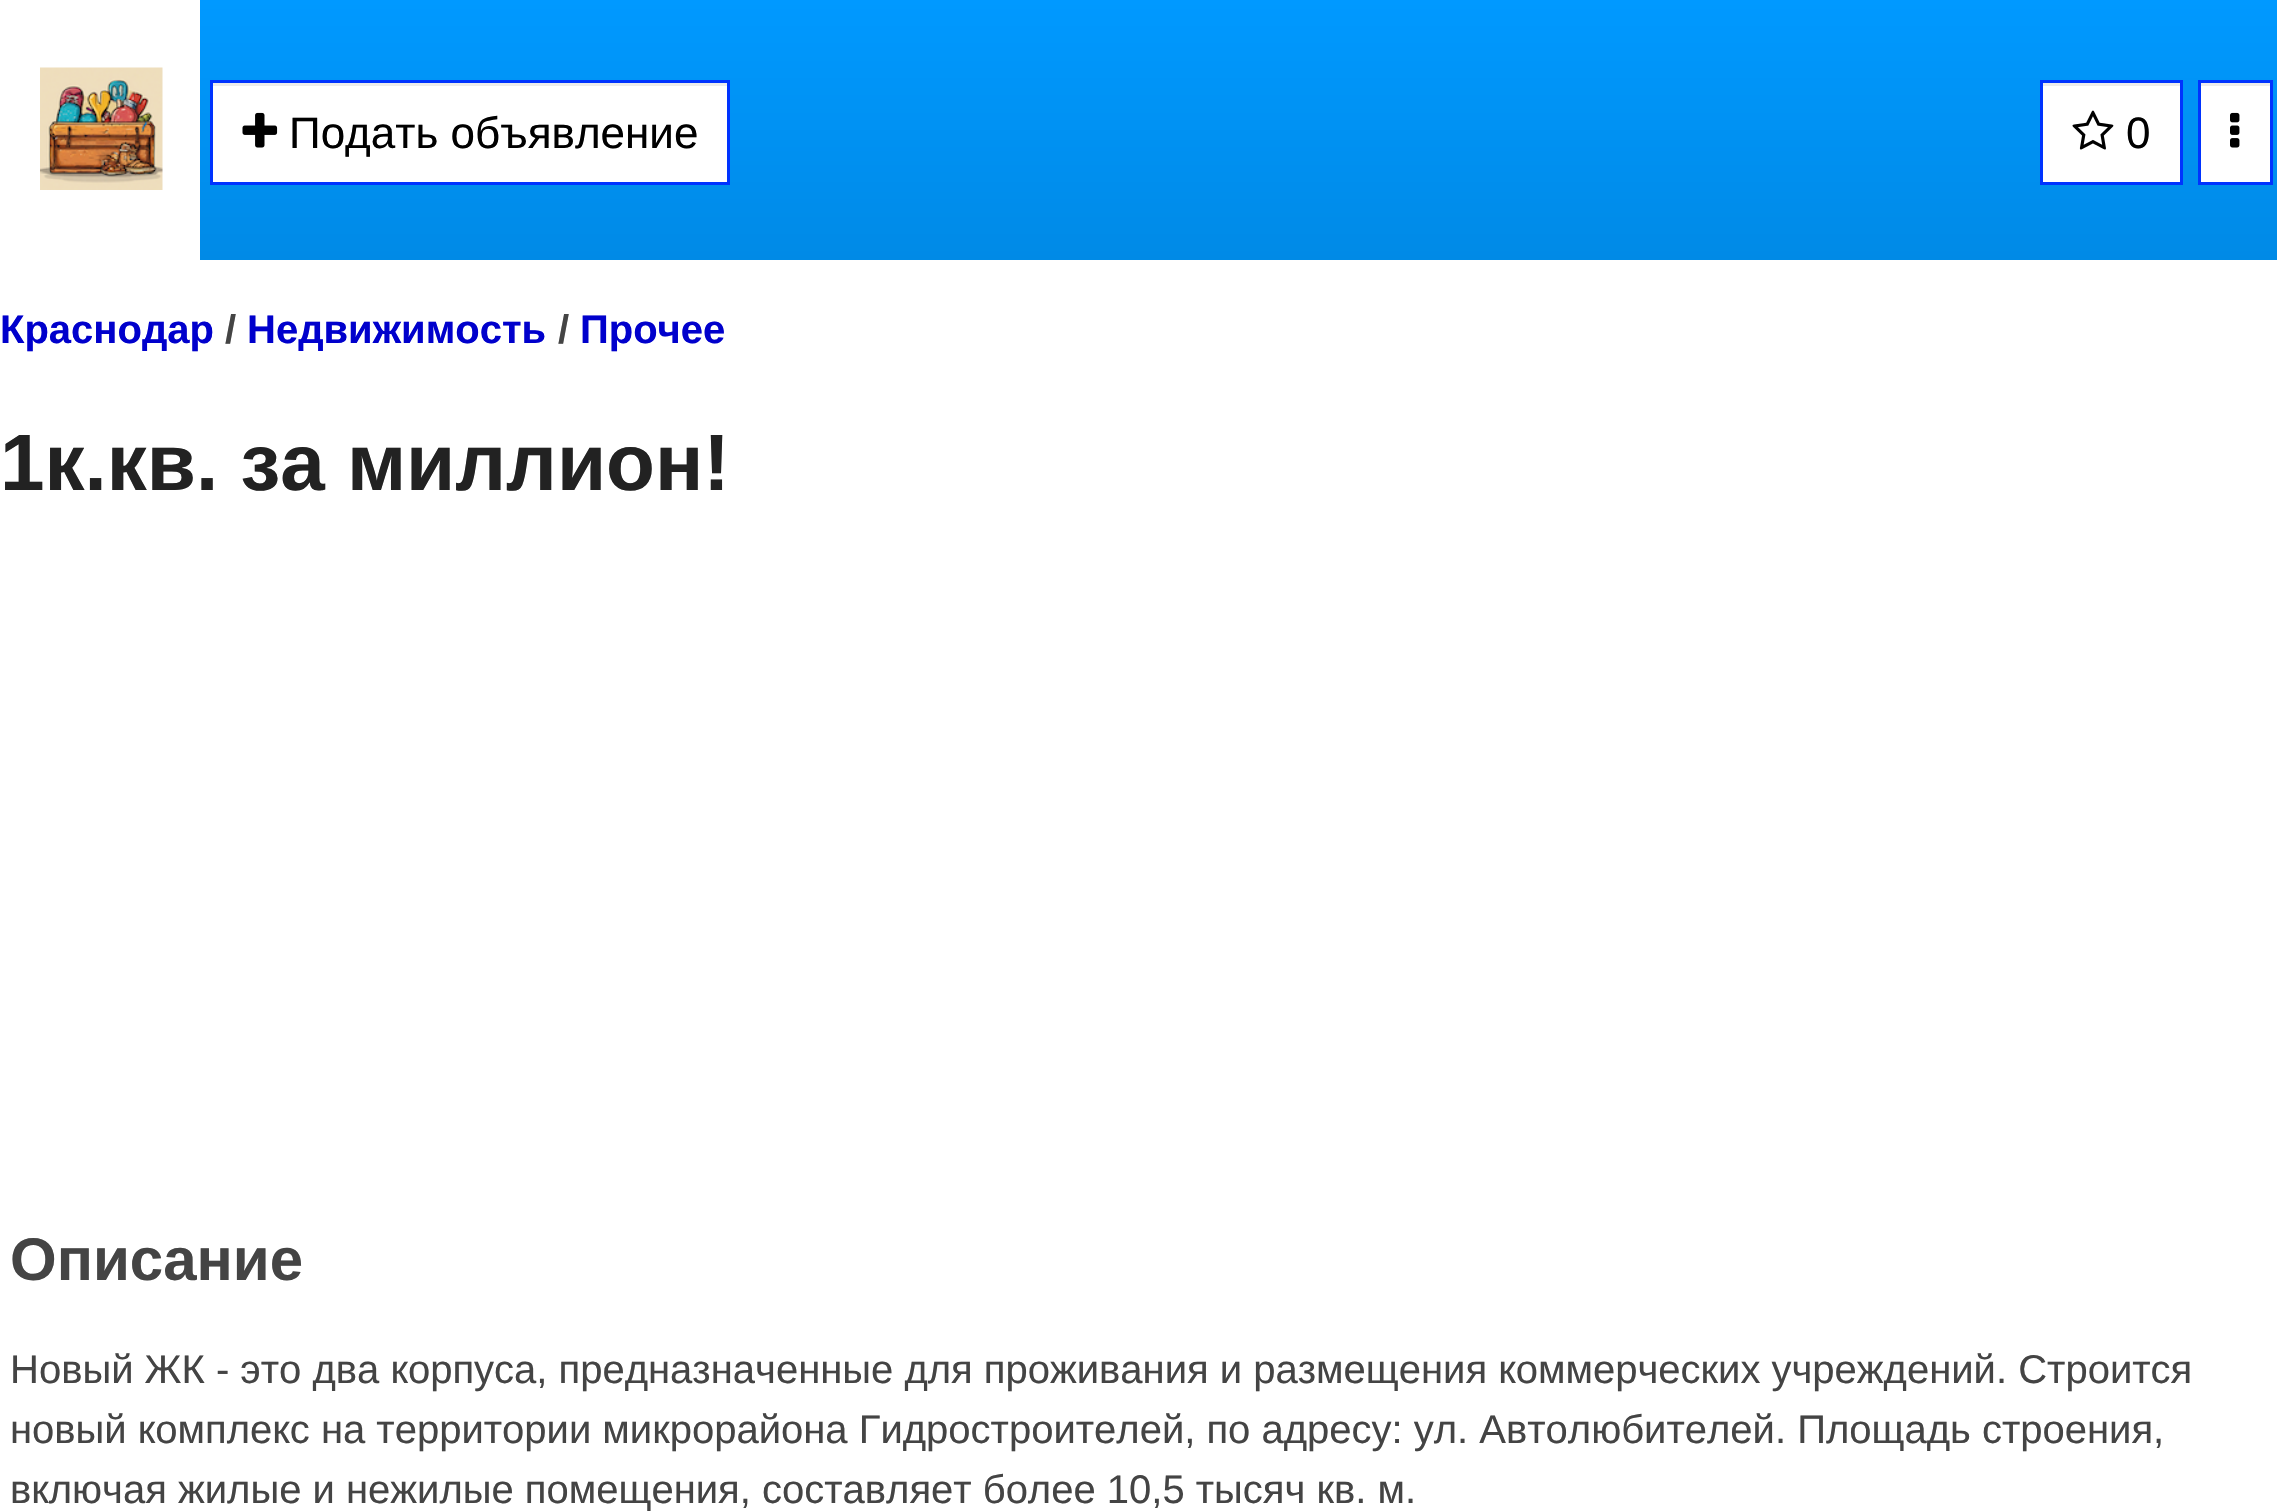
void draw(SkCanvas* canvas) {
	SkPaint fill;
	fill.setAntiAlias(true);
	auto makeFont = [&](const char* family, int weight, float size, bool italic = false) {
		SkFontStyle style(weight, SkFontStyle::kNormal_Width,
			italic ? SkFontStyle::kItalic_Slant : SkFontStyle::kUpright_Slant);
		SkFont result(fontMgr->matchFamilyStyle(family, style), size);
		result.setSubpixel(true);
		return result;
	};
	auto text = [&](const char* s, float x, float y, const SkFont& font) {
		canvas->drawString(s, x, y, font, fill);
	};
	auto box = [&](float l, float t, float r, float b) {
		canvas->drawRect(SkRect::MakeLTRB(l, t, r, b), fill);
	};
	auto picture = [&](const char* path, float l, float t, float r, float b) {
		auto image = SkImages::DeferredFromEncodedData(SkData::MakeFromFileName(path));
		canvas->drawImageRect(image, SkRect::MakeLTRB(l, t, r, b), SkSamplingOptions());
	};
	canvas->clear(0xFFFFFFFF);
	{
		const SkColor colors[] = {0xFF0099FF, 0xFF008AE6};
		const float stops[] = {0, 1};
		const SkPoint ends[] = {{0, 0}, {0, 260}};
		fill.setShader(SkGradientShader::MakeLinear(ends, colors, stops, 2, SkTileMode::kClamp));
		fill.setAlpha(255);
	}
	box(200, 0, 2277, 260);
	picture("image0.png", 40, 67, 163, 190);
	fill.setShader(nullptr);
	fill.setColor(0xFFFFFFFF);
	box(213, 86, 727, 182);
	fill.setColor(0xFFECECEC);
	box(213, 83, 728, 86);
	fill.setStyle(SkPaint::kStroke_Style);
	fill.setStrokeWidth(3);
	fill.setColor(0xFF0033FF);
	canvas->drawRect(SkRect::MakeLTRB(211.5f, 81.5f, 728.5f, 183.5f), fill);
	picture("image1.png", 242, 112, 278, 148);
	fill.setStyle(SkPaint::kFill_Style);
	fill.setColor(0xFFFFFFFF);
	box(2043, 86, 2180, 182);
	fill.setColor(0xFFECECEC);
	box(2043, 83, 2180, 86);
	fill.setStyle(SkPaint::kStroke_Style);
	fill.setColor(0xFF0033FF);
	canvas->drawRect(SkRect::MakeLTRB(2041.5f, 81.5f, 2181.5f, 183.5f), fill);
	picture("image2.png", 2072, 110, 2114, 150);
	fill.setStyle(SkPaint::kFill_Style);
	fill.setColor(0xFFFFFFFF);
	box(2201, 86, 2270, 182);
	fill.setColor(0xFFECECEC);
	box(2200, 83, 2270, 86);
	fill.setStyle(SkPaint::kStroke_Style);
	fill.setColor(0xFF0033FF);
	canvas->drawRect(SkRect::MakeLTRB(2199.5f, 81.5f, 2271.5f, 183.5f), fill);
	picture("image3.png", 2230, 112, 2240, 148);
	auto font1 = makeFont("Liberation Sans", 400, 44);
	fill.setStyle(SkPaint::kFill_Style);
	fill.setColor(0xFF000000);
	text("Подать объявление", 289, 148, font1);
	text("0", 2126, 148, font1);
	auto font2 = makeFont("Liberation Sans", 700, 40);
	fill.setColor(0xFF0000CC);
	text("Краснодар", 0, 343, font2);
	fill.setColor(0xFF444444);
	text("/", 225, 343, font2);
	fill.setColor(0xFF0000CC);
	text("Недвижимость", 247, 343, font2);
	fill.setColor(0xFF444444);
	text("/", 558, 343, font2);
	fill.setColor(0xFF0000CC);
	text("Прочее", 580, 343, font2);
	auto font3 = makeFont("Liberation Sans", 700, 80);
	fill.setColor(0xFF222222);
	text("1к.кв. за миллион!", 0, 490, font3);
	auto font4 = makeFont("Liberation Sans", 700, 60);
	fill.setColor(0xFF444444);
	text("Описание", 10, 1280, font4);
	auto font5 = makeFont("Liberation Sans", 400, 40);
	text("Новый ЖК - это два корпуса, предназначенные для проживания и размещения коммерческих учреждений. Строится", 10, 1383, font5);
	text("новый комплекс на территории микрорайона Гидростроителей, по адресу: ул. Автолюбителей. Площадь строения,", 10, 1443, font5);
	text("включая жилые и нежилые помещения, составляет более 10,5 тысяч кв. м.", 10, 1503, font5);
}
